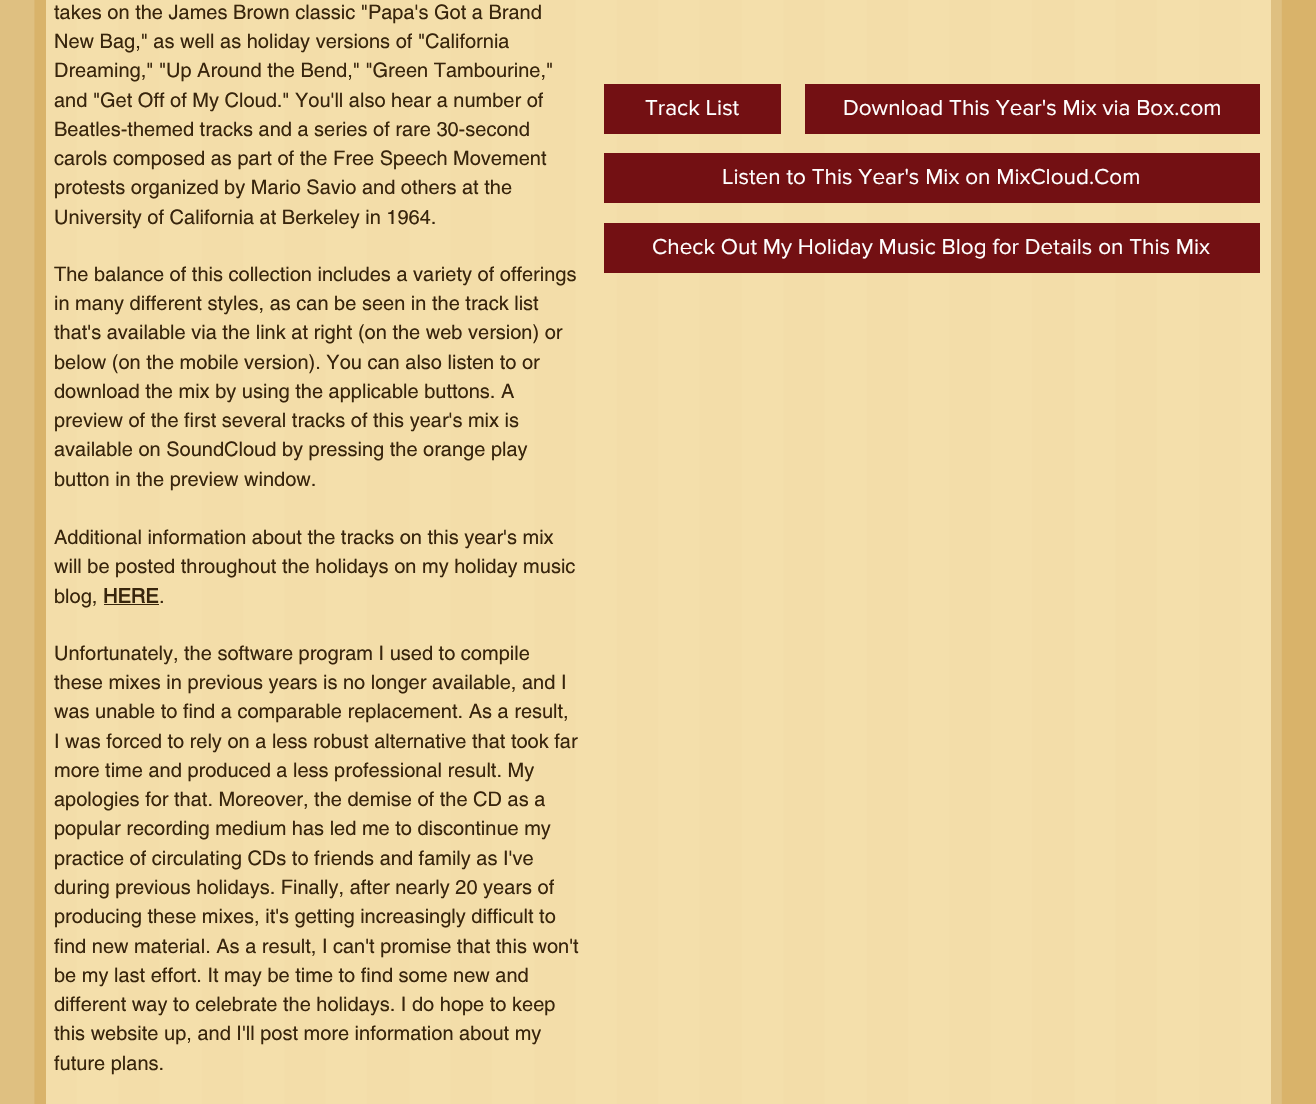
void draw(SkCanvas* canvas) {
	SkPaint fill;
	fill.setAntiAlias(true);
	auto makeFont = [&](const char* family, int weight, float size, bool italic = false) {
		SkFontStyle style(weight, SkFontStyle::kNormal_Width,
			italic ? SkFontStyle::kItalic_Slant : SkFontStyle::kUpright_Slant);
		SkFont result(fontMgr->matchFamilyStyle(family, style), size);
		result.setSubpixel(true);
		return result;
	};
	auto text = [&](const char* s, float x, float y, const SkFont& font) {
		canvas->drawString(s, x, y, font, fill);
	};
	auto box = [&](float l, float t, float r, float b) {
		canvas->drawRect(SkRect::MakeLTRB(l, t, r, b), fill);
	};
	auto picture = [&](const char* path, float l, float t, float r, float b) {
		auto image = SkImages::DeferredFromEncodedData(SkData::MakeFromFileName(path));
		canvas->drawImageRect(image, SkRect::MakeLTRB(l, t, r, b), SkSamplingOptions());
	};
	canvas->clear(0xFFFFFFFF);
	picture("image0.png", 0, 0, 1316, 1104);
	fill.setColor(0xFF38250C);
	box(104, 604, 159, 605);
	fill.setColor(0xFF731013);
	box(604, 84, 781, 134);
	box(805, 84, 1260, 134);
	box(604, 153, 1260, 203);
	box(604, 223, 1260, 273);
	auto font1 = makeFont("helvetica", 400, 20);
	fill.setColor(0xFF38250C);
	text("takes on the James Brown classic \"Papa's Got a Brand", 54, 19, font1);
	text("New Bag,\" as well as holiday versions of \"California", 54, 48, font1);
	text("Dreaming,\" \"Up Around the Bend,\" \"Green Tambourine,\"", 54, 77, font1);
	text("and \"Get Off of My Cloud.\" You'll also hear a number of", 54, 107, font1);
	text("Beatles-themed tracks and a series of rare 30-second", 54, 136, font1);
	text("carols composed as part of the Free Speech Movement", 54, 165, font1);
	text("protests organized by Mario Savio and others at the", 54, 194, font1);
	text("University of California at Berkeley in 1964.", 54, 224, font1);
	text("The balance of this collection includes a variety of offerings", 54, 281, font1);
	text("in many different styles, as can be seen in the track list", 54, 310, font1);
	text("that's available via the link at right (on the web version) or", 54, 339, font1);
	text("below (on the mobile version). You can also listen to or", 54, 369, font1);
	text("download the mix by using the applicable buttons. A", 54, 398, font1);
	text("preview of the first several tracks of this year's mix is", 54, 427, font1);
	text("available on SoundCloud by pressing the orange play", 54, 456, font1);
	text("button in the preview window.", 54, 486, font1);
	text("Additional information about the tracks on this year's mix", 54, 544, font1);
	text("will be posted throughout the holidays on my holiday music", 54, 573, font1);
	text("blog,", 54, 603, font1);
	auto font2 = makeFont("helvetica", 700, 20);
	text("HERE", 103, 603, font2);
	text(".", 159, 603, font1);
	text("Unfortunately, the software program I used to compile", 54, 660, font1);
	text("these mixes in previous years is no longer available, and I", 54, 689, font1);
	text("was unable to find a comparable replacement. As a result,", 54, 718, font1);
	text("I was forced to rely on a less robust alternative that took far", 54, 748, font1);
	text("more time and produced a less professional result. My", 54, 777, font1);
	text("apologies for that. Moreover, the demise of the CD as a", 54, 806, font1);
	text("popular recording medium has led me to discontinue my", 54, 835, font1);
	text("practice of circulating CDs to friends and family as I've", 54, 865, font1);
	text("during previous holidays. Finally, after nearly 20 years of", 54, 894, font1);
	text("producing these mixes, it's getting increasingly difficult to", 54, 923, font1);
	text("find new material. As a result, I can't promise that this won't", 54, 953, font1);
	text("be my last effort. It may be time to find some new and", 54, 982, font1);
	text("different way to celebrate the holidays. I do hope to keep", 54, 1011, font1);
	text("this website up, and I'll post more information about my", 54, 1040, font1);
	text("future plans.", 54, 1070, font1);
	auto font3 = makeFont("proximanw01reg", 400, 22.5f);
	fill.setColor(0xFFFFFFFF);
	text("Track List", 645, 115, font3);
	text("Download This Year's Mix via Box.com", 843, 115, font3);
	text("Listen to This Year's Mix on MixCloud.Com", 722, 184, font3);
	text("Check Out My Holiday Music Blog for Details on This Mix", 652, 254, font3);
}
